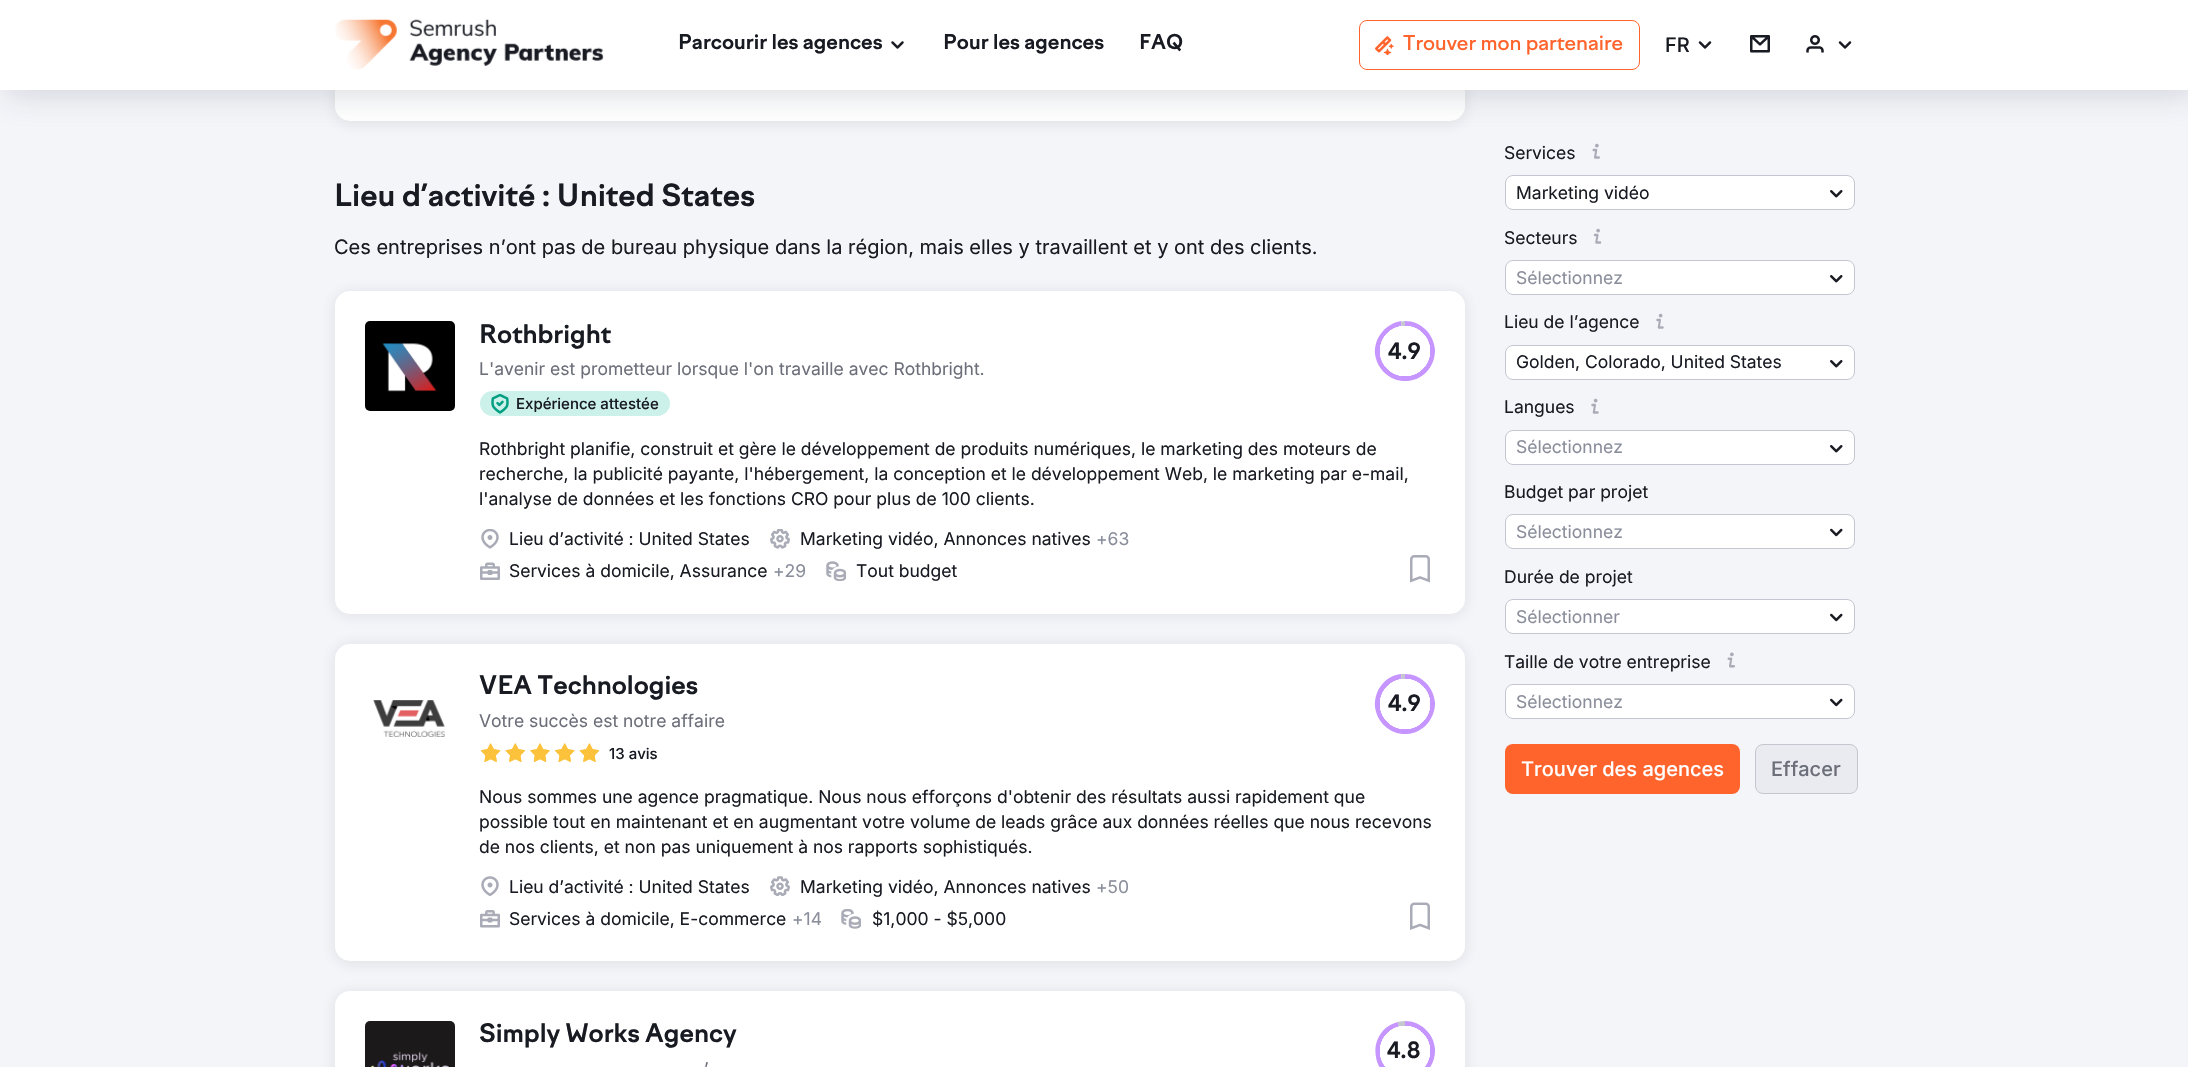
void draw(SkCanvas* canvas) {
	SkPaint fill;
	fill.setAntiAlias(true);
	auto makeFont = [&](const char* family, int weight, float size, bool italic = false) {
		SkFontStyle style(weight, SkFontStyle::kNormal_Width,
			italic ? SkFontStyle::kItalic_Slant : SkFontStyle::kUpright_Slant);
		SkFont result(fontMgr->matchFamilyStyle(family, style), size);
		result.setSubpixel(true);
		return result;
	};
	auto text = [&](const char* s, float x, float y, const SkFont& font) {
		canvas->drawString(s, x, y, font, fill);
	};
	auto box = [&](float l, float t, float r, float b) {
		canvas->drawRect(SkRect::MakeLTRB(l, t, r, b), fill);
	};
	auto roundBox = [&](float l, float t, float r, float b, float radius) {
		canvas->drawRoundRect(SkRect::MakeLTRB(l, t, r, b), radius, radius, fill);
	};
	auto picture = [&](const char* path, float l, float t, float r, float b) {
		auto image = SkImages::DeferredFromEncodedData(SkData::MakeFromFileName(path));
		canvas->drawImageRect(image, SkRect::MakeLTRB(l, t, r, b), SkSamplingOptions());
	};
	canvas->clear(0xFFF4F5F9);
	fill.setColor(0x1A191B23);
	fill.setMaskFilter(SkMaskFilter::MakeBlur(kNormal_SkBlurStyle, 7.5f));
	canvas->drawRoundRect(SkRect::MakeLTRB(335, -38, 1465, 123), 15, 15, fill);
	fill.setMaskFilter(nullptr);
	fill.setColor(0xFFFFFFFF);
	roundBox(335, -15, 1465, 121, 15);
	picture("image21.png", 1592, 143, 1600, 159);
	fill.setColor(0x4D898D9A);
	fill.setMaskFilter(SkMaskFilter::MakeBlur(kNormal_SkBlurStyle, 15.5f));
	canvas->drawRect(SkRect::MakeLTRB(6, 6, 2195, 96), fill);
	fill.setMaskFilter(nullptr);
	fill.setColor(0xFFFFFFFF);
	box(0, 0, 2188, 90);
	picture("image0.png", 335, 19, 604, 70);
	picture("image1.png", 891, 41, 904, 49);
	fill.setStyle(SkPaint::kStroke_Style);
	fill.setStrokeWidth(1);
	fill.setColor(0xFFFF642D);
	canvas->drawRoundRect(SkRect::MakeLTRB(1359.5f, 20.5f, 1639.5f, 69.5f), 7.5f, 7.5f, fill);
	picture("image2.png", 1375, 36, 1394, 55);
	picture("image3.png", 1698, 41, 1712, 49);
	picture("image4.png", 1750, 35, 1770, 53);
	picture("image5.png", 1806, 35, 1824, 53);
	picture("image3.png", 1838, 41, 1852, 49);
	fill.setStyle(SkPaint::kFill_Style);
	fill.setColor(0x1A191B23);
	fill.setMaskFilter(SkMaskFilter::MakeBlur(kNormal_SkBlurStyle, 7.5f));
	canvas->drawRoundRect(SkRect::MakeLTRB(335, 293, 1465, 615), 15, 15, fill);
	fill.setMaskFilter(nullptr);
	fill.setColor(0xFFFFFFFF);
	roundBox(335, 291, 1465, 614, 15);
	picture("image6.png", 365, 321, 455, 411);
	fill.setColor(0xFFCCF1EA);
	roundBox(480, 391, 670, 416, 12.5f);
	picture("image7.png", 491, 394, 509, 414);
	fill.setColor(0xFFC695FF);
	canvas->drawPath(SkPathBuilder().moveTo(1405, 351).lineTo(1405, 321).cubicTo(1421, 321, 1434, 334, 1435, 350).cubicTo(1435, 367, 1423, 380, 1407, 381).cubicTo(1391, 382, 1377, 370, 1375, 354).cubicTo(1374, 338, 1385, 324, 1401, 321).close().detach(), fill);
	fill.setColor(0xFFC4C7CF);
	canvas->drawPath(SkPathBuilder().moveTo(1405, 351).lineTo(1401, 321.5f).lineTo(1405, 321).close().detach(), fill);
	{
		const SkColor colors[] = {0xFFFFFFFF, 0x00FFFFFF, 0x00000000};
		const float stops[] = {0.84f, 0.85f, 1};
		fill.setShader(SkGradientShader::MakeRadial({1405, 351}, 30, colors, stops, 3, SkTileMode::kClamp));
		fill.setAlpha(255);
	}
	box(1380, 326, 1430, 376);
	picture("image8.png", 481, 529, 499, 549);
	picture("image9.png", 770, 529, 790, 549);
	picture("image10.png", 480, 562, 500, 580);
	picture("image11.png", 826, 561, 846, 581);
	picture("image12.png", 1410, 555, 1430, 583);
	fill.setShader(nullptr);
	fill.setColor(0x1A191B23);
	fill.setMaskFilter(SkMaskFilter::MakeBlur(kNormal_SkBlurStyle, 7.5f));
	canvas->drawRoundRect(SkRect::MakeLTRB(335, 645, 1465, 963), 15, 15, fill);
	fill.setMaskFilter(nullptr);
	fill.setColor(0xFFFFFFFF);
	roundBox(335, 644, 1465, 961, 15);
	picture("image13.png", 373, 700, 445, 737);
	picture("image14.png", 480, 743, 600, 762);
	fill.setColor(0xFFC695FF);
	canvas->drawPath(SkPathBuilder().moveTo(1405, 704).lineTo(1405, 674).cubicTo(1421, 674, 1434, 687, 1435, 703).cubicTo(1435, 719, 1423, 733, 1407, 734).cubicTo(1391, 735, 1377, 723, 1375, 707).cubicTo(1374, 690, 1385, 676, 1401, 674).close().detach(), fill);
	fill.setColor(0xFFC4C7CF);
	canvas->drawPath(SkPathBuilder().moveTo(1405, 704).lineTo(1401, 674).lineTo(1405, 674).close().detach(), fill);
	{
		const SkColor colors[] = {0xFFFFFFFF, 0x00FFFFFF, 0x00000000};
		const float stops[] = {0.84f, 0.85f, 1};
		fill.setShader(SkGradientShader::MakeRadial({1405, 704}, 30, colors, stops, 3, SkTileMode::kClamp));
		fill.setAlpha(255);
	}
	box(1380, 679, 1430, 729);
	picture("image15.png", 481, 876, 499, 896);
	picture("image16.png", 770, 876, 790, 896);
	picture("image17.png", 480, 910, 500, 928);
	picture("image18.png", 841, 909, 861, 929);
	picture("image19.png", 1410, 902, 1430, 930);
	fill.setShader(nullptr);
	fill.setColor(0x1A191B23);
	fill.setMaskFilter(SkMaskFilter::MakeBlur(kNormal_SkBlurStyle, 7.5f));
	canvas->drawRoundRect(SkRect::MakeLTRB(335, 993, 1465, 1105), 15, 15, fill);
	fill.setMaskFilter(nullptr);
	fill.setColor(0xFFFFFFFF);
	roundBox(335, 991, 1465, 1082, 15);
	picture("image20.png", 365, 1021, 455, 1067);
	fill.setColor(0xFFC695FF);
	canvas->drawPath(SkPathBuilder().moveTo(1405, 1051).lineTo(1405, 1021).cubicTo(1421, 1021, 1434, 1034, 1435, 1049).cubicTo(1436, 1065, 1424, 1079, 1409, 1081).cubicTo(1393, 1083, 1378, 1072, 1376, 1057).cubicTo(1373, 1041, 1382, 1026, 1398, 1022).close().detach(), fill);
	fill.setColor(0xFFC4C7CF);
	canvas->drawPath(SkPathBuilder().moveTo(1405, 1051).lineTo(1397.5f, 1022).cubicTo(1400, 1021.5f, 1402.5f, 1021, 1405, 1021).close().detach(), fill);
	{
		const SkColor colors[] = {0xFFFFFFFF, 0x00FFFFFF, 0x00000000};
		const float stops[] = {0.84f, 0.85f, 1};
		fill.setShader(SkGradientShader::MakeRadial({1405, 1051}, 30, colors, stops, 3, SkTileMode::kClamp));
		fill.setAlpha(255);
	}
	box(1380, 1026, 1430, 1067);
	fill.setShader(nullptr);
	fill.setColor(0xFFFFFFFF);
	canvas->drawRoundRect(SkRect::MakeLTRB(1505.5f, 175.5f, 1854.5f, 209.5f), 7.5f, 7.5f, fill);
	fill.setStyle(SkPaint::kStroke_Style);
	fill.setColor(0xFFC4C7CF);
	canvas->drawRoundRect(SkRect::MakeLTRB(1505.5f, 175.5f, 1854.5f, 209.5f), 7.5f, 7.5f, fill);
	picture("image22.png", 1830, 190, 1843, 198);
	picture("image23.png", 1593, 228, 1602, 244);
	fill.setStyle(SkPaint::kFill_Style);
	fill.setColor(0xFFFFFFFF);
	canvas->drawRoundRect(SkRect::MakeLTRB(1505.5f, 260.5f, 1854.5f, 294.5f), 7.5f, 7.5f, fill);
	fill.setStyle(SkPaint::kStroke_Style);
	fill.setColor(0xFFC4C7CF);
	canvas->drawRoundRect(SkRect::MakeLTRB(1505.5f, 260.5f, 1854.5f, 294.5f), 7.5f, 7.5f, fill);
	picture("image22.png", 1830, 275, 1843, 283);
	picture("image24.png", 1656, 313, 1664, 329);
	fill.setStyle(SkPaint::kFill_Style);
	fill.setColor(0xFFFFFFFF);
	canvas->drawRoundRect(SkRect::MakeLTRB(1505.5f, 345.5f, 1854.5f, 379.5f), 7.5f, 7.5f, fill);
	fill.setStyle(SkPaint::kStroke_Style);
	fill.setColor(0xFFC4C7CF);
	canvas->drawRoundRect(SkRect::MakeLTRB(1505.5f, 345.5f, 1854.5f, 379.5f), 7.5f, 7.5f, fill);
	picture("image22.png", 1830, 360, 1843, 368);
	picture("image24.png", 1591, 398, 1599, 414);
	fill.setStyle(SkPaint::kFill_Style);
	fill.setColor(0xFFFFFFFF);
	canvas->drawRoundRect(SkRect::MakeLTRB(1505.5f, 430.5f, 1854.5f, 464.5f), 7.5f, 7.5f, fill);
	fill.setStyle(SkPaint::kStroke_Style);
	fill.setColor(0xFFC4C7CF);
	canvas->drawRoundRect(SkRect::MakeLTRB(1505.5f, 430.5f, 1854.5f, 464.5f), 7.5f, 7.5f, fill);
	picture("image22.png", 1830, 445, 1843, 453);
	fill.setStyle(SkPaint::kFill_Style);
	fill.setColor(0xFFFFFFFF);
	canvas->drawRoundRect(SkRect::MakeLTRB(1505.5f, 514.5f, 1854.5f, 548.5f), 7.5f, 7.5f, fill);
	fill.setStyle(SkPaint::kStroke_Style);
	fill.setColor(0xFFC4C7CF);
	canvas->drawRoundRect(SkRect::MakeLTRB(1505.5f, 514.5f, 1854.5f, 548.5f), 7.5f, 7.5f, fill);
	picture("image25.png", 1830, 528, 1843, 537);
	fill.setStyle(SkPaint::kFill_Style);
	fill.setColor(0xFFFFFFFF);
	canvas->drawRoundRect(SkRect::MakeLTRB(1505.5f, 599.5f, 1854.5f, 633.5f), 7.5f, 7.5f, fill);
	fill.setStyle(SkPaint::kStroke_Style);
	fill.setColor(0xFFC4C7CF);
	canvas->drawRoundRect(SkRect::MakeLTRB(1505.5f, 599.5f, 1854.5f, 633.5f), 7.5f, 7.5f, fill);
	picture("image25.png", 1830, 613, 1843, 622);
	picture("image26.png", 1727, 652, 1735, 668);
	fill.setStyle(SkPaint::kFill_Style);
	fill.setColor(0xFFFFFFFF);
	canvas->drawRoundRect(SkRect::MakeLTRB(1505.5f, 684.5f, 1854.5f, 718.5f), 7.5f, 7.5f, fill);
	fill.setStyle(SkPaint::kStroke_Style);
	fill.setColor(0xFFC4C7CF);
	canvas->drawRoundRect(SkRect::MakeLTRB(1505.5f, 684.5f, 1854.5f, 718.5f), 7.5f, 7.5f, fill);
	picture("image25.png", 1830, 698, 1843, 707);
	fill.setStyle(SkPaint::kFill_Style);
	fill.setColor(0xFFFF642D);
	roundBox(1505, 744, 1740, 794, 8);
	fill.setColor(0xFFE9EBF0);
	canvas->drawRoundRect(SkRect::MakeLTRB(1755.5f, 744.5f, 1857.5f, 793.5f), 7.5f, 7.5f, fill);
	fill.setStyle(SkPaint::kStroke_Style);
	fill.setColor(0xFFC4C7CF);
	canvas->drawRoundRect(SkRect::MakeLTRB(1755.5f, 744.5f, 1857.5f, 793.5f), 7.5f, 7.5f, fill);
	auto font1 = makeFont("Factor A", 700, 20);
	fill.setStyle(SkPaint::kFill_Style);
	fill.setColor(0xFF191B23);
	text("Parcourir les agences", 678, 49, font1);
	text("Pour les agences", 943, 49, font1);
	text("FAQ", 1139, 49, font1);
	auto font2 = makeFont("Factor A", 500, 20);
	fill.setColor(0xFFFF642D);
	text("Trouver mon partenaire", 1403, 50, font2);
	auto font3 = makeFont("Inter", 500, 20);
	fill.setColor(0xFF191B23);
	text("FR", 1665, 52, font3);
	auto font4 = makeFont("Factor A", 700, 30);
	text("Lieu d’activité : United States", 334, 206, font4);
	auto font5 = makeFont("Inter", 400, 20);
	text("Ces entreprises n’ont pas de bureau physique dans la région, mais elles y travaillent et y ont des clients.", 334, 254, font5);
	auto font6 = makeFont("Factor A", 700, 25);
	text("Rothbright", 479, 343, font6);
	auto font7 = makeFont("Inter", 400, 17.5f);
	fill.setColor(0xFF6C6E79);
	text("L'avenir est prometteur lorsque l'on travaille avec Rothbright.", 479, 375, font7);
	auto font8 = makeFont("Inter", 500, 15);
	fill.setColor(0xFF191B23);
	text("Expérience attestée", 516, 409, font8);
	auto font9 = makeFont("Factor A", 700, 22);
	text("4.9", 1388, 359, font9);
	text("Rothbright planifie, construit et gère le développement de produits numériques, le marketing des moteurs de", 479, 455, font7);
	text("recherche, la publicité payante, l'hébergement, la conception et le développement Web, le marketing par e-mail,", 479, 480, font7);
	text("l'analyse de données et les fonctions CRO pour plus de 100 clients.", 479, 505, font7);
	text("Lieu d’activité : United States", 509, 545, font7);
	text("Marketing vidéo, Annonces natives", 800, 545, font7);
	fill.setColor(0xFF8A8E9B);
	text("+63", 1096, 545, font7);
	fill.setColor(0xFF191B23);
	text("Services à domicile, Assurance", 509, 577, font7);
	fill.setColor(0xFF8A8E9B);
	text("+29", 773, 577, font7);
	fill.setColor(0xFF191B23);
	text("Tout budget", 856, 577, font7);
	text("VEA Technologies", 479, 694, font6);
	fill.setColor(0xFF6C6E79);
	text("Votre succès est notre affaire", 479, 727, font7);
	fill.setColor(0xFF191B23);
	text("13 avis", 609, 759, font8);
	text("4.9", 1388, 711, font9);
	text("Nous sommes une agence pragmatique. Nous nous efforçons d'obtenir des résultats aussi rapidement que", 479, 803, font7);
	text("possible tout en maintenant et en augmentant votre volume de leads grâce aux données réelles que nous recevons", 479, 828, font7);
	text("de nos clients, et non pas uniquement à nos rapports sophistiqués.", 479, 853, font7);
	text("Lieu d’activité : United States", 509, 893, font7);
	text("Marketing vidéo, Annonces natives", 800, 893, font7);
	fill.setColor(0xFF8A8E9B);
	text("+50", 1096, 893, font7);
	fill.setColor(0xFF191B23);
	text("Services à domicile, E-commerce", 509, 925, font7);
	fill.setColor(0xFF8A8E9B);
	text("+14", 792, 925, font7);
	fill.setColor(0xFF191B23);
	text("$1,000 - $5,000", 872, 925, font7);
	text("Simply Works Agency", 479, 1042, font6);
	fill.setColor(0xFF6C6E79);
	text("’", 704, 1075, font7);
	fill.setColor(0xFF191B23);
	text("4.8", 1387, 1058, font9);
	text("Services", 1504, 159, font7);
	text("Marketing vidéo", 1516, 199, font7);
	text("Secteurs", 1504, 244, font7);
	fill.setColor(0xFF8A8E9B);
	text("Sélectionnez", 1516, 284, font7);
	fill.setColor(0xFF191B23);
	text("Lieu de l’agence", 1504, 328, font7);
	text("Golden, Colorado, United States", 1516, 368, font7);
	text("Langues", 1504, 413, font7);
	fill.setColor(0xFF8A8E9B);
	text("Sélectionnez", 1516, 453, font7);
	fill.setColor(0xFF191B23);
	text("Budget par projet", 1504, 498, font7);
	fill.setColor(0xFF8A8E9B);
	text("Sélectionnez", 1516, 538, font7);
	fill.setColor(0xFF191B23);
	text("Durée de projet", 1504, 583, font7);
	fill.setColor(0xFF8A8E9B);
	text("Sélectionner", 1516, 623, font7);
	fill.setColor(0xFF191B23);
	text("Taille de votre entreprise", 1504, 668, font7);
	fill.setColor(0xFF8A8E9B);
	text("Sélectionnez", 1516, 708, font7);
	fill.setColor(0xFFFFFFFF);
	text("Trouver des agences", 1521, 776, font3);
	fill.setColor(0xFF6C6E79);
	text("Effacer", 1771, 776, font3);
}
